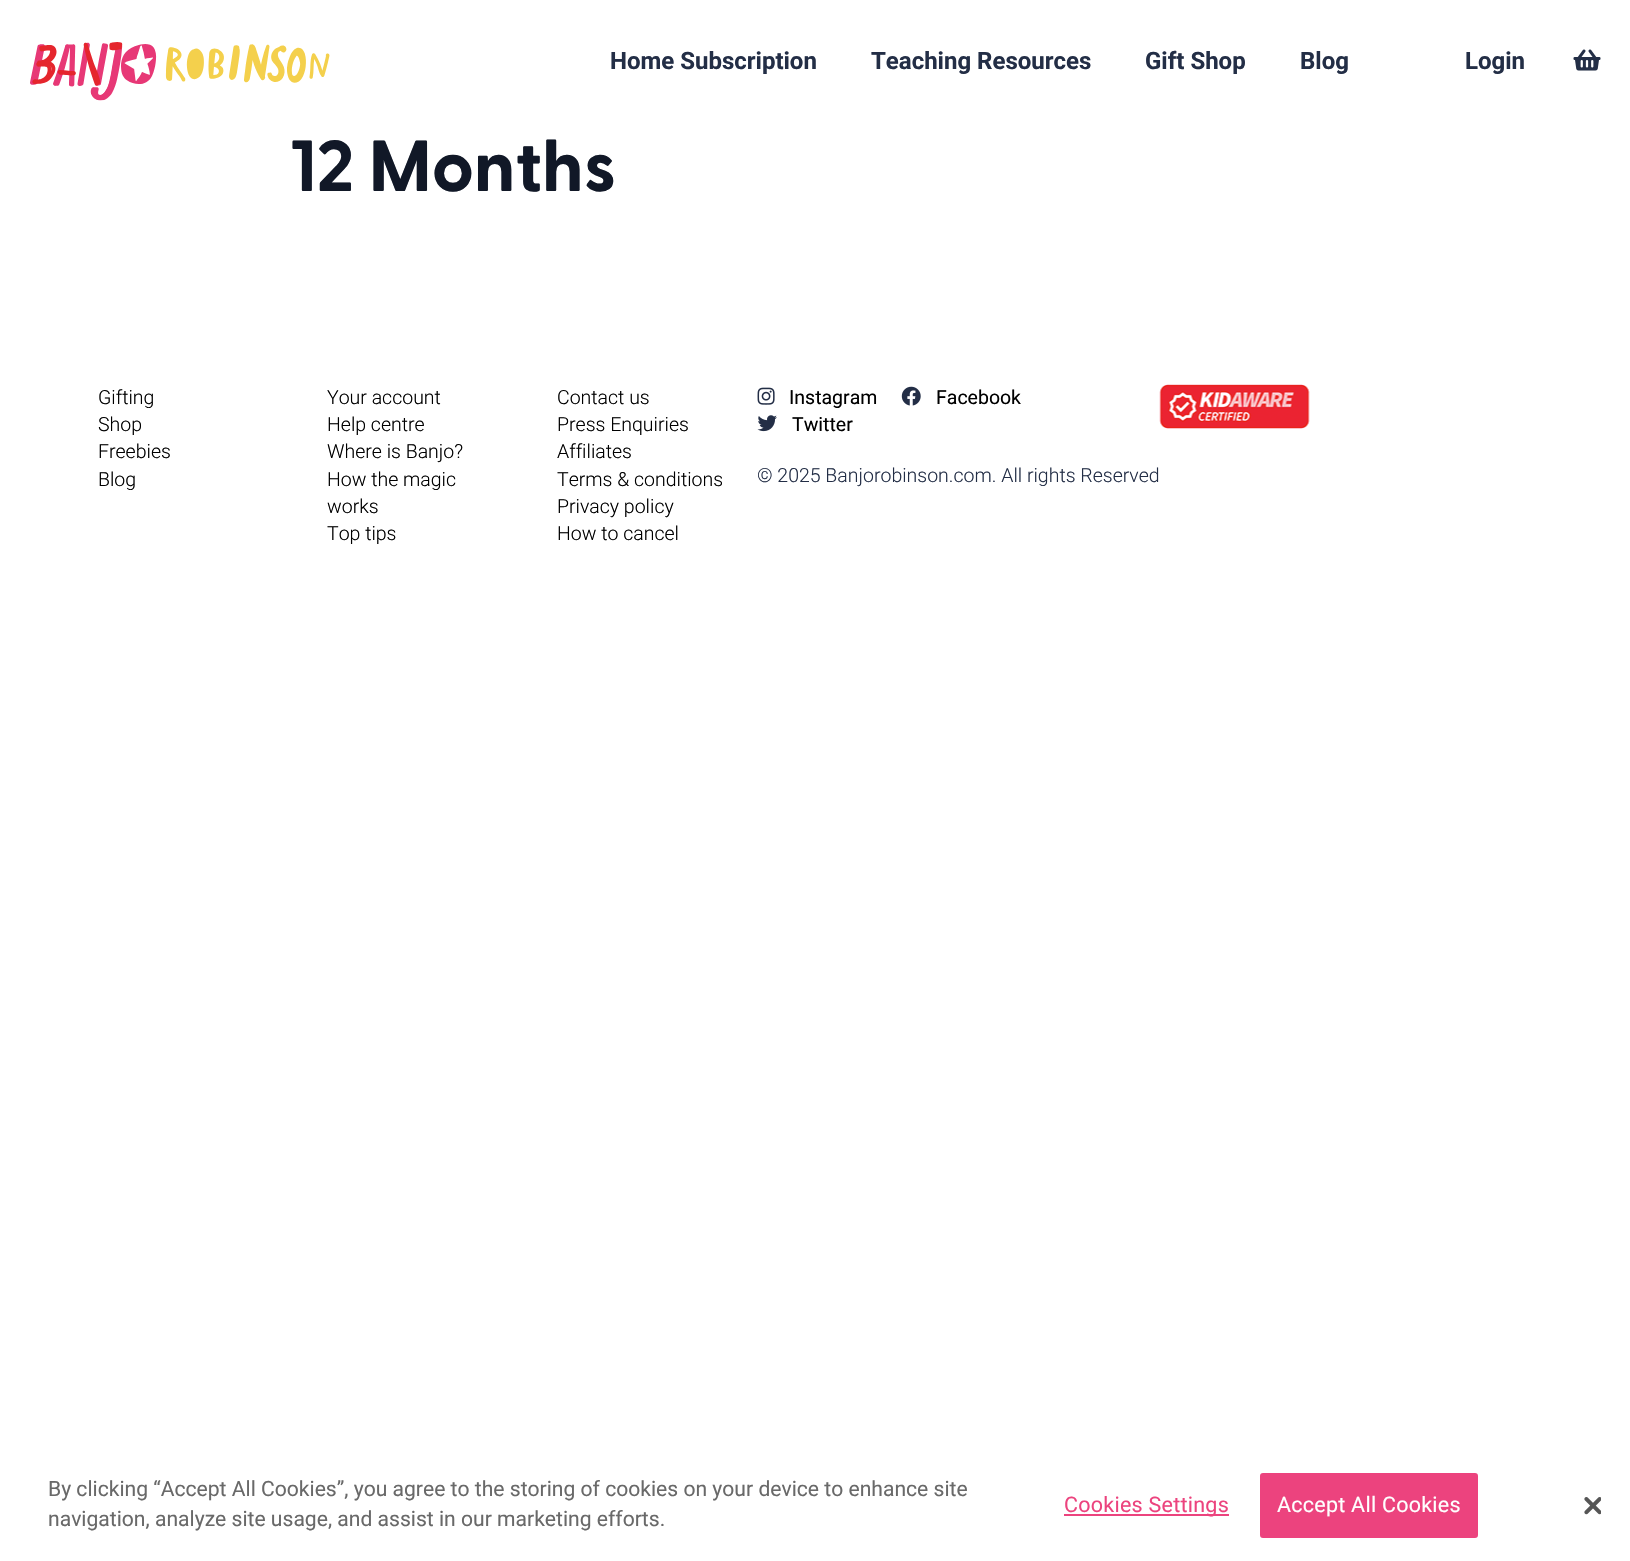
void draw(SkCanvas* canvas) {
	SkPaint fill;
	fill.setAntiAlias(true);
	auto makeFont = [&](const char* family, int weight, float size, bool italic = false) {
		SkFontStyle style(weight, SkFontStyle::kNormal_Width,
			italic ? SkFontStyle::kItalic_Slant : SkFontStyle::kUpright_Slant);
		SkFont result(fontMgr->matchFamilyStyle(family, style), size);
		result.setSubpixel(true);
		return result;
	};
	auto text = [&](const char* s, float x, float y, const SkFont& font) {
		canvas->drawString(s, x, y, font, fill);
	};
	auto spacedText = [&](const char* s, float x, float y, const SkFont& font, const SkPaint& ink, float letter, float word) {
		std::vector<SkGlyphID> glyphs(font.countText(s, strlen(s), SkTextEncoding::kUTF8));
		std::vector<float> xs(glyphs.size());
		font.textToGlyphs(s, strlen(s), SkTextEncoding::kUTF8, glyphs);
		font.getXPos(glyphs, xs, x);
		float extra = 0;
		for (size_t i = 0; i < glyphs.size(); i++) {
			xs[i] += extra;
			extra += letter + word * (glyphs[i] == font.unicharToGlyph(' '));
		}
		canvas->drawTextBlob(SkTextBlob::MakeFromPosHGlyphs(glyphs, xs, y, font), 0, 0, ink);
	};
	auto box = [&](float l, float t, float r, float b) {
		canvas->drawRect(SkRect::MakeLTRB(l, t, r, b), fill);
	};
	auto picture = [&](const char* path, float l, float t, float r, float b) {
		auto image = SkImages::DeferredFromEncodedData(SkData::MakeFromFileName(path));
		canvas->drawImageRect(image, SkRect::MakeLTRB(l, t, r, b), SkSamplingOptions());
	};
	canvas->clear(0xFFFFFFFF);
	picture("image0.png", 30, 42, 330, 101);
	picture("image1.png", 1573, 49, 1601, 71);
	picture("image2.png", 757, 387, 775, 405);
	picture("image3.png", 901, 386, 921, 406);
	picture("image4.png", 757, 415, 777, 432);
	picture("image5.png", 1159, 384, 1310, 429);
	fill.setColor(0xFFEC437E);
	box(1064, 1514, 1229, 1516);
	canvas->drawRoundRect(SkRect::MakeLTRB(1261, 1474, 1477, 1537), 2, 2, fill);
	fill.setStyle(SkPaint::kStroke_Style);
	fill.setStrokeWidth(2);
	canvas->drawRoundRect(SkRect::MakeLTRB(1261, 1474, 1477, 1537), 2, 2, fill);
	picture("image6.png", 1584, 1497, 1601, 1515);
	auto font1 = makeFont("Roboto", 700, 24);
	fill.setStyle(SkPaint::kFill_Style);
	fill.setColor(0xFF232E46);
	text("Home Subscription", 610, 69, font1);
	text("Teaching Resources", 871, 69, font1);
	text("Gift Shop", 1145, 69, font1);
	text("Blog", 1300, 69, font1);
	text("Login", 1465, 69, font1);
	auto font2 = makeFont("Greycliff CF", 700, 72);
	fill.setColor(0xFF111827);
	text("12 Months", 290, 191, font2);
	auto font3 = makeFont("Roboto", 300, 19.5f);
	fill.setColor(0xFF000000);
	text("Gifting", 98, 404, font3);
	text("Shop", 98, 431, font3);
	text("Freebies", 98, 458, font3);
	text("Blog", 98, 486, font3);
	text("Your account", 327, 404, font3);
	text("Help centre", 327, 431, font3);
	text("Where is Banjo?", 327, 458, font3);
	text("How the magic", 327, 486, font3);
	text("works", 327, 513, font3);
	text("Top tips", 327, 540, font3);
	text("Contact us", 557, 404, font3);
	text("Press Enquiries", 557, 431, font3);
	text("Affiliates", 557, 458, font3);
	text("Terms & conditions", 557, 486, font3);
	text("Privacy policy", 557, 513, font3);
	text("How to cancel", 557, 540, font3);
	auto font4 = makeFont("Roboto", 400, 19.5f);
	text("Instagram", 789, 404, font4);
	text("Facebook", 936, 404, font4);
	text("Twitter", 792, 431, font4);
	fill.setColor(0xFF232E46);
	text("© 2025 Banjorobinson.com. All rights Reserved", 757, 482, font3);
	auto font5 = makeFont("Roboto", 400, 21.1f);
	fill.setColor(0xFF696969);
	text("By clicking “Accept All Cookies”, you agree to the storing of cookies on your device to enhance site", 48, 1496, font5);
	text("navigation, analyze site usage, and assist in our marketing efforts.", 48, 1526, font5);
	auto font6 = makeFont("Roboto", 400, 21.5f);
	fill.setColor(0xFFEC437E);
	spacedText("Cookies Settings", 1064, 1512, font6, fill, 0.25f, 0);
	fill.setColor(0xFFFFFFFF);
	spacedText("Accept All Cookies", 1277, 1512, font6, fill, 0.25f, 0);
}
